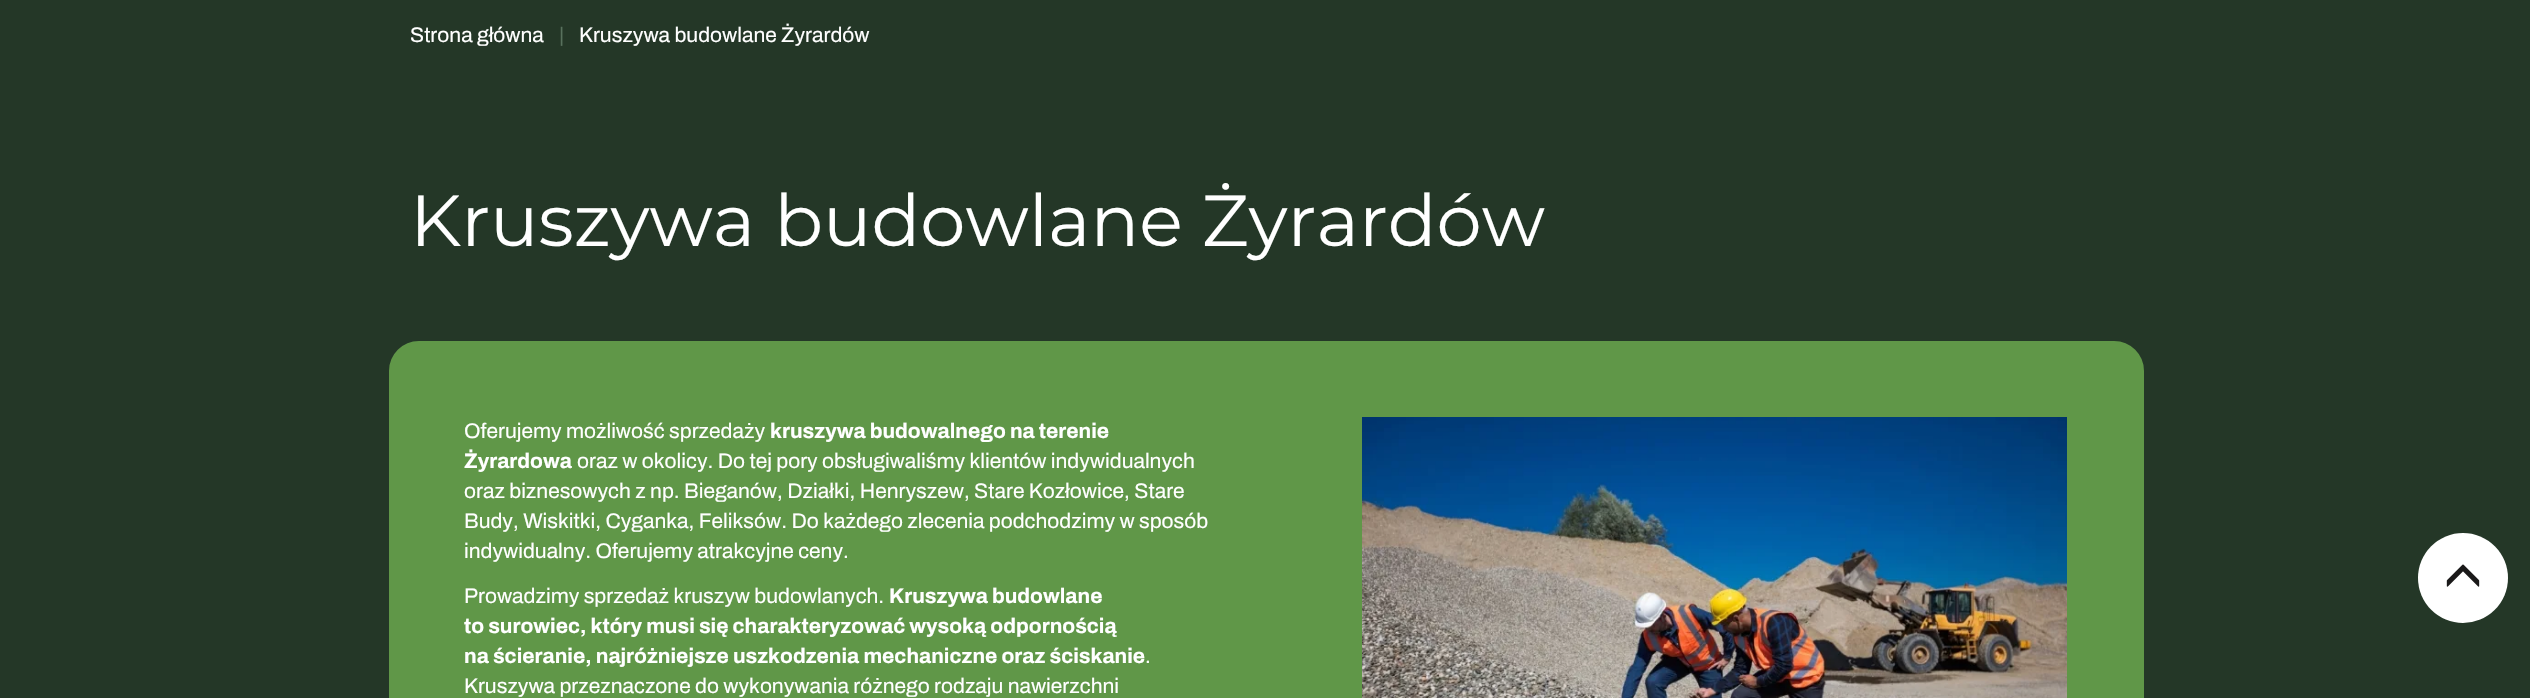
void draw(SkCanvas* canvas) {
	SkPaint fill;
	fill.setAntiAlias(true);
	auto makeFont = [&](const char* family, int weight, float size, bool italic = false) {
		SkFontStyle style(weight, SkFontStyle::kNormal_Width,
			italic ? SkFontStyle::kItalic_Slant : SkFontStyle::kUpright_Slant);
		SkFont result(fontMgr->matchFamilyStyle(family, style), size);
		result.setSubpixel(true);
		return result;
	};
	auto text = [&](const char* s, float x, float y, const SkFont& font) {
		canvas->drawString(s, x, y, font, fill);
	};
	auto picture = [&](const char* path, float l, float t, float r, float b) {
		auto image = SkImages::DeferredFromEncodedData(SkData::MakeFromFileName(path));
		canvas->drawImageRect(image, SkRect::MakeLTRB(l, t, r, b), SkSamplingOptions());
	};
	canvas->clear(0xFF243727);
	fill.setColor(0xFF609748);
	canvas->drawRoundRect(SkRect::MakeLTRB(390, 342, 2143, 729), 29, 29, fill);
	fill.setStyle(SkPaint::kStroke_Style);
	fill.setStrokeWidth(2);
	canvas->drawRoundRect(SkRect::MakeLTRB(390, 342, 2143, 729), 29, 29, fill);
	picture("image0.png", 1362, 417, 2067, 698);
	fill.setStyle(SkPaint::kFill_Style);
	fill.setColor(0xFFFFFFFF);
	canvas->drawCircle(2463, 578, 45, fill);
	picture("image1.png", 2446, 564, 2480, 587);
	auto font1 = makeFont("Archivo", 400, 21);
	text("Strona główna", 410, 42, font1);
	fill.setColor(0xFF58715D);
	text("|", 559, 42, font1);
	fill.setColor(0xFFFFFFFF);
	text("Kruszywa budowlane Żyrardów", 579, 42, font1);
	auto font2 = makeFont("Montserrat", 400, 72);
	text("Kruszywa budowlane Żyrardów", 410, 246, font2);
	text("Oferujemy możliwość sprzedaży", 464, 438, font1);
	auto font3 = makeFont("Archivo", 700, 21);
	text("kruszywa budowalnego na terenie", 770, 438, font3);
	text("Żyrardowa", 464, 468, font3);
	text("oraz w okolicy. Do tej pory obsługiwaliśmy klientów indywidualnych", 577, 468, font1);
	text("oraz biznesowych z np. Bieganów, Działki, Henryszew, Stare Kozłowice, Stare", 464, 498, font1);
	text("Budy, Wiskitki, Cyganka, Feliksów. Do każdego zlecenia podchodzimy w sposób", 464, 528, font1);
	text("indywidualny. Oferujemy atrakcyjne ceny.", 464, 558, font1);
	text("Prowadzimy sprzedaż kruszyw budowlanych.", 464, 603, font1);
	text("Kruszywa budowlane", 889, 603, font3);
	text("to surowiec, który musi się charakteryzować wysoką odpornością", 464, 633, font3);
	text("na ścieranie, najróżniejsze uszkodzenia mechaniczne oraz ściskanie", 464, 663, font3);
	text(".", 1145, 663, font1);
	text("Kruszywa przeznaczone do wykonywania różnego rodzaju nawierzchni", 464, 693, font1);
}
